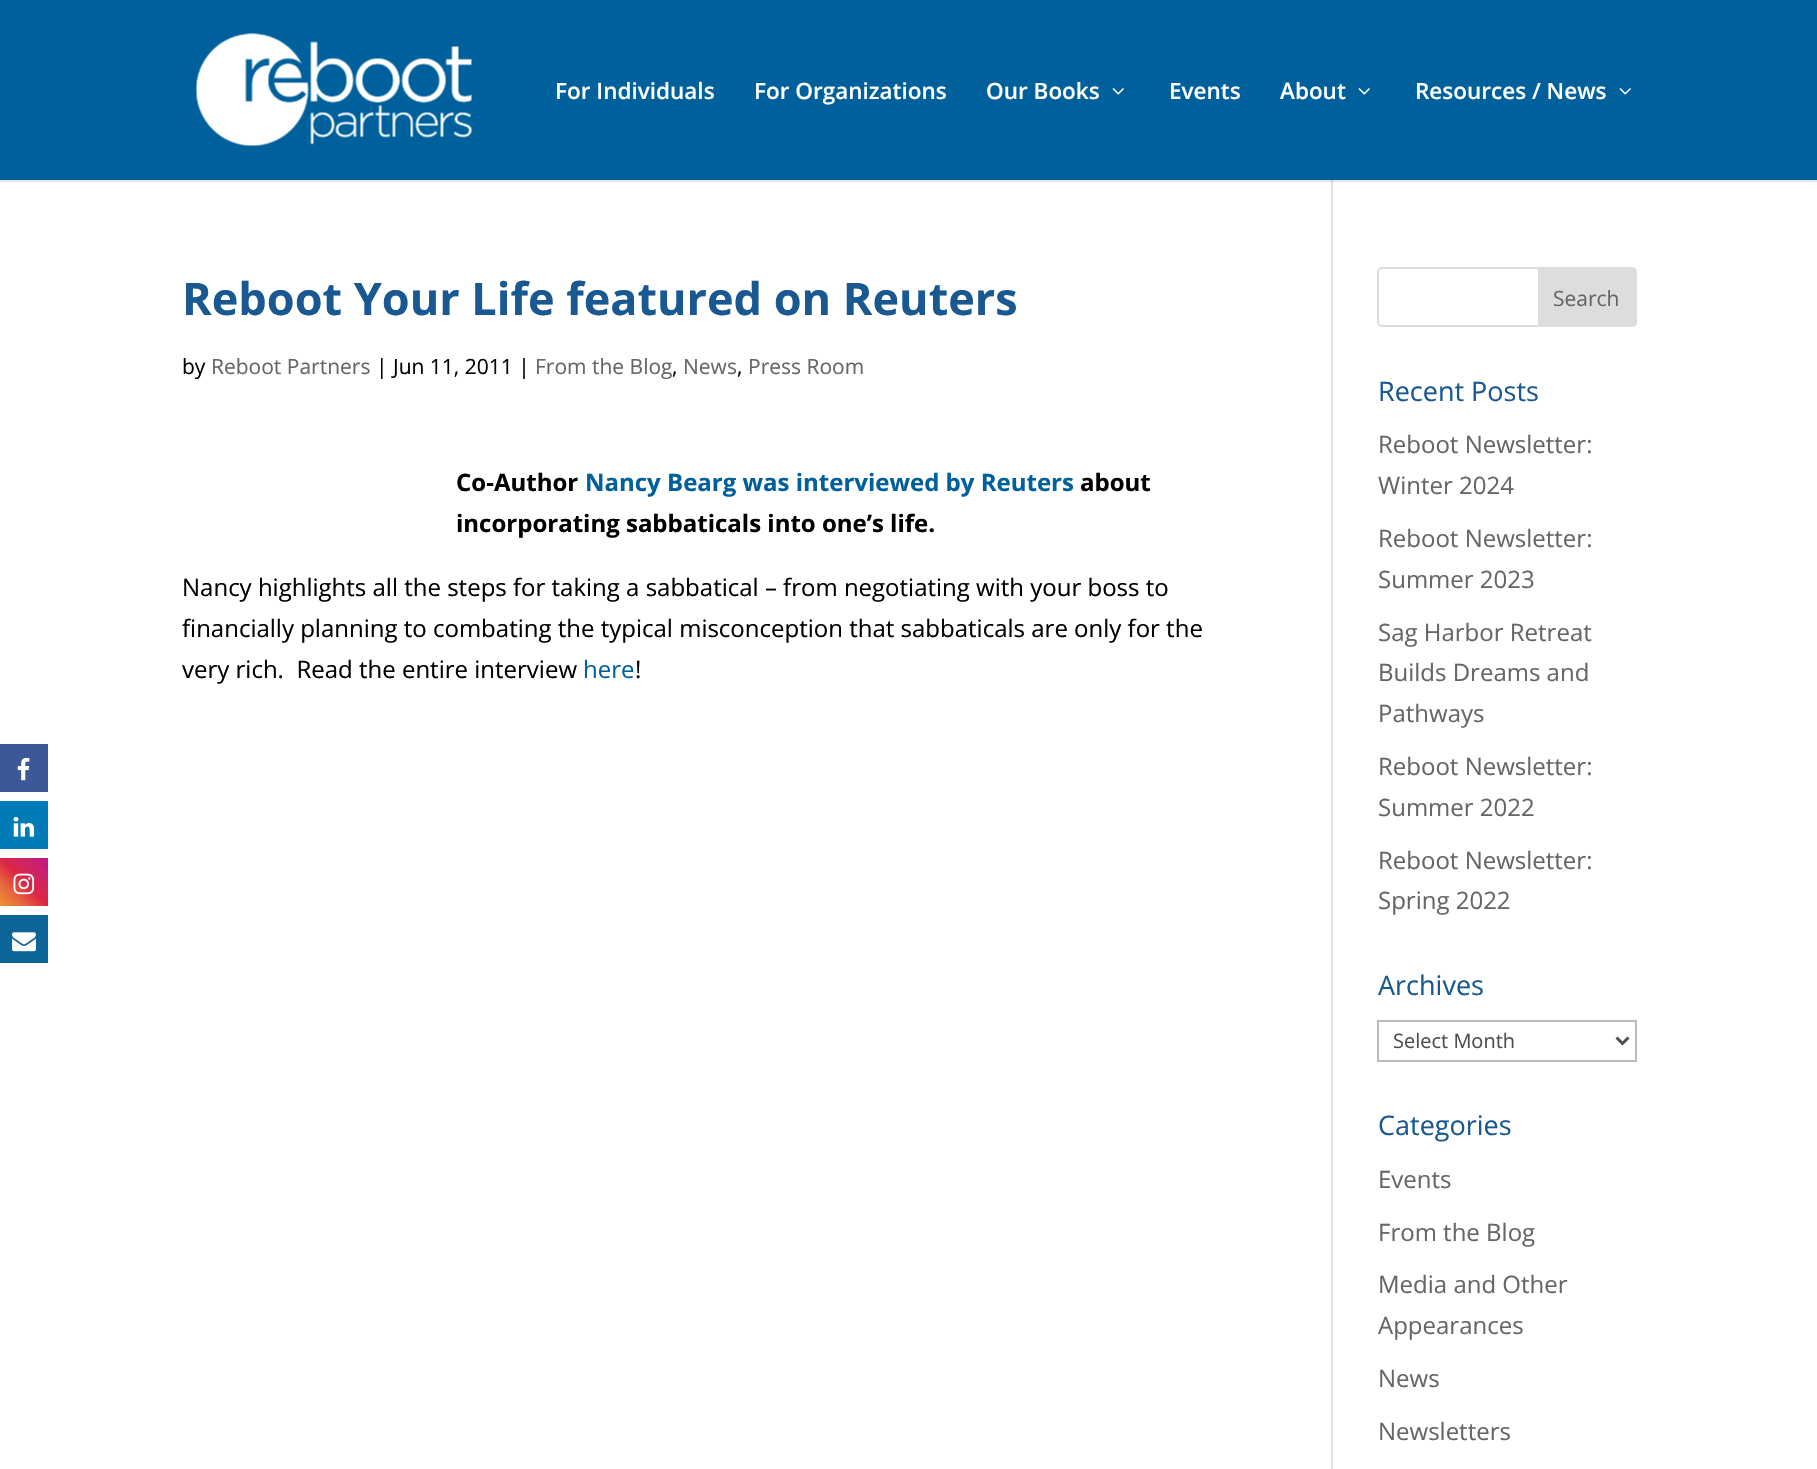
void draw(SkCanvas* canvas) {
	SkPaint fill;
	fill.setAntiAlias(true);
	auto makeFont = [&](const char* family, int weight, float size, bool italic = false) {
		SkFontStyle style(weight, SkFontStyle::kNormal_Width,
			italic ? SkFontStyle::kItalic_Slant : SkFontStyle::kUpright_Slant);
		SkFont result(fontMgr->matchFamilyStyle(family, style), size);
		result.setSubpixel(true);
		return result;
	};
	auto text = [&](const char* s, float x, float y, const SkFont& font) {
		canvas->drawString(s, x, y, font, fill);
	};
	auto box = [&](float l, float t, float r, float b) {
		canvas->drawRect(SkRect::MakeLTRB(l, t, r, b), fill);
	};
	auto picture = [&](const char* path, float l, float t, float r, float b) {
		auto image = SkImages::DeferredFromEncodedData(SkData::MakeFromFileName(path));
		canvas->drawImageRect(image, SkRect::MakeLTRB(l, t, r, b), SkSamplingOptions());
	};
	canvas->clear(0xFFFFFFFF);
	fill.setColor(0xFFE6E6E6);
	box(0, 180, 1817, 182);
	fill.setColor(0xFF3B5998);
	box(0, 744, 48, 792);
	picture("image0.png", 17, 757, 30, 781);
	fill.setColor(0xFF007BB6);
	box(0, 801, 48, 849);
	picture("image1.png", 13, 816, 35, 837);
	{
		const SkColor colors[] = {0xFFF09433, 0xFFE6683C, 0xFFDC2743, 0xFFCC2366, 0xFFBC1888};
		const float stops[] = {0, 0.25f, 0.5f, 0.75f, 1};
		const SkPoint ends[] = {{0, 906}, {48, 858}};
		fill.setShader(SkGradientShader::MakeLinear(ends, colors, stops, 5, SkTileMode::kClamp));
		fill.setAlpha(255);
	}
	box(0, 858, 48, 906);
	picture("image2.png", 13, 873, 35, 895);
	fill.setShader(nullptr);
	fill.setColor(0xFF0C6499);
	box(0, 915, 48, 963);
	picture("image3.png", 12, 932, 36, 952);
	fill.setColor(0xFF00609C);
	box(0, 0, 1817, 180);
	picture("image4.png", 196, 33, 472, 146);
	picture("image5.png", 1112, 88, 1124, 95);
	picture("image5.png", 1358, 88, 1370, 95);
	picture("image5.png", 1619, 88, 1631, 95);
	fill.setColor(0xFFE2E2E2);
	box(1331, 180, 1333, 1469);
	fill.setColor(0xFFCBCBCB);
	box(1331, 180, 1333, 182);
	fill.setStyle(SkPaint::kStroke_Style);
	fill.setStrokeWidth(2);
	fill.setColor(0xFFDDDDDD);
	canvas->drawRoundRect(SkRect::MakeLTRB(1378, 268, 1636, 326), 4, 4, fill);
	fill.setStyle(SkPaint::kFill_Style);
	canvas->drawPath(SkPathBuilder().moveTo(1539, 268).lineTo(1632, 268).cubicTo(1634, 268, 1636, 270, 1636, 272).lineTo(1636, 322).cubicTo(1636, 324, 1634, 326, 1632, 326).lineTo(1539, 326).close().detach(), fill);
	fill.setStyle(SkPaint::kStroke_Style);
	canvas->drawPath(SkPathBuilder().moveTo(1539, 268).lineTo(1632, 268).cubicTo(1634, 268, 1636, 270, 1636, 272).lineTo(1636, 322).cubicTo(1636, 324, 1634, 326, 1632, 326).lineTo(1539, 326).close().detach(), fill);
	fill.setColor(0xFFBBBBBB);
	canvas->drawRect(SkRect::MakeLTRB(1378, 1021, 1636, 1061), fill);
	fill.setStrokeWidth(3);
	fill.setColor(0xFF4E4E4E);
	canvas->drawPath(SkPathBuilder().moveTo(1616.5f, 1037.5f).lineTo(1622.5f, 1043.5f).lineTo(1628.5f, 1037.5f).detach(), fill);
	auto font1 = makeFont("Open Sans", 600, 22.5f);
	fill.setStyle(SkPaint::kFill_Style);
	fill.setColor(0xFFFFFFFF);
	text("For Individuals", 555, 99, font1);
	text("For Organizations", 754, 99, font1);
	text("Our Books", 986, 99, font1);
	text("Events", 1169, 99, font1);
	text("About", 1280, 99, font1);
	text("Resources / News", 1415, 99, font1);
	auto font2 = makeFont("Open Sans", 700, 45);
	fill.setColor(0xFF195891);
	text("Reboot Your Life featured on Reuters", 182, 315, font2);
	auto font3 = makeFont("Open Sans", 400, 21);
	fill.setColor(0xFF000000);
	text("by", 182, 374, font3);
	fill.setColor(0xFF666666);
	text("Reboot Partners", 211, 374, font3);
	fill.setColor(0xFF000000);
	text("| Jun 11, 2011 |", 376, 374, font3);
	fill.setColor(0xFF666666);
	text("From the Blog", 535, 374, font3);
	fill.setColor(0xFF000000);
	text(",", 672, 374, font3);
	fill.setColor(0xFF666666);
	text("News", 683, 374, font3);
	fill.setColor(0xFF000000);
	text(",", 737, 374, font3);
	fill.setColor(0xFF666666);
	text("Press Room", 748, 374, font3);
	auto font4 = makeFont("Open Sans", 700, 24);
	fill.setColor(0xFF000000);
	text("Co-Author", 456, 491, font4);
	fill.setColor(0xFF00609C);
	text("Nancy Bearg was interviewed by Reuters", 585, 491, font4);
	fill.setColor(0xFF000000);
	text("about", 1080, 491, font4);
	text("incorporating sabbaticals into one’s life.", 456, 532, font4);
	auto font5 = makeFont("Open Sans", 400, 24);
	text("Nancy highlights all the steps for taking a sabbatical – from negotiating with your boss to", 182, 596, font5);
	text("financially planning to combating the typical misconception that sabbaticals are only for the", 182, 637, font5);
	text("very rich.  Read the entire interview", 182, 678, font5);
	fill.setColor(0xFF00609C);
	text("here", 583, 678, font5);
	fill.setColor(0xFF000000);
	text("!", 635, 678, font5);
	fill.setColor(0xFF666666);
	text("Search", 1553, 306, font3);
	auto font6 = makeFont("Open Sans", 400, 27);
	fill.setColor(0xFF195891);
	text("Recent Posts", 1378, 401, font6);
	fill.setColor(0xFF666666);
	text("Reboot Newsletter:", 1378, 453, font5);
	text("Winter 2024", 1378, 494, font5);
	text("Reboot Newsletter:", 1378, 547, font5);
	text("Summer 2023", 1378, 588, font5);
	text("Sag Harbor Retreat", 1378, 641, font5);
	text("Builds Dreams and", 1378, 681, font5);
	text("Pathways", 1378, 722, font5);
	text("Reboot Newsletter:", 1378, 775, font5);
	text("Summer 2022", 1378, 816, font5);
	text("Reboot Newsletter:", 1378, 869, font5);
	text("Spring 2022", 1378, 909, font5);
	fill.setColor(0xFF195891);
	text("Archives", 1378, 995, font6);
	auto font7 = makeFont("Open Sans", 400, 20);
	fill.setColor(0xFF4E4E4E);
	text("Select Month", 1393, 1048, font7);
	fill.setColor(0xFF195891);
	text("Categories", 1378, 1135, font6);
	fill.setColor(0xFF666666);
	text("Events", 1378, 1188, font5);
	text("From the Blog", 1378, 1241, font5);
	text("Media and Other", 1378, 1293, font5);
	text("Appearances", 1378, 1334, font5);
	text("News", 1378, 1387, font5);
	text("Newsletters", 1378, 1440, font5);
}
